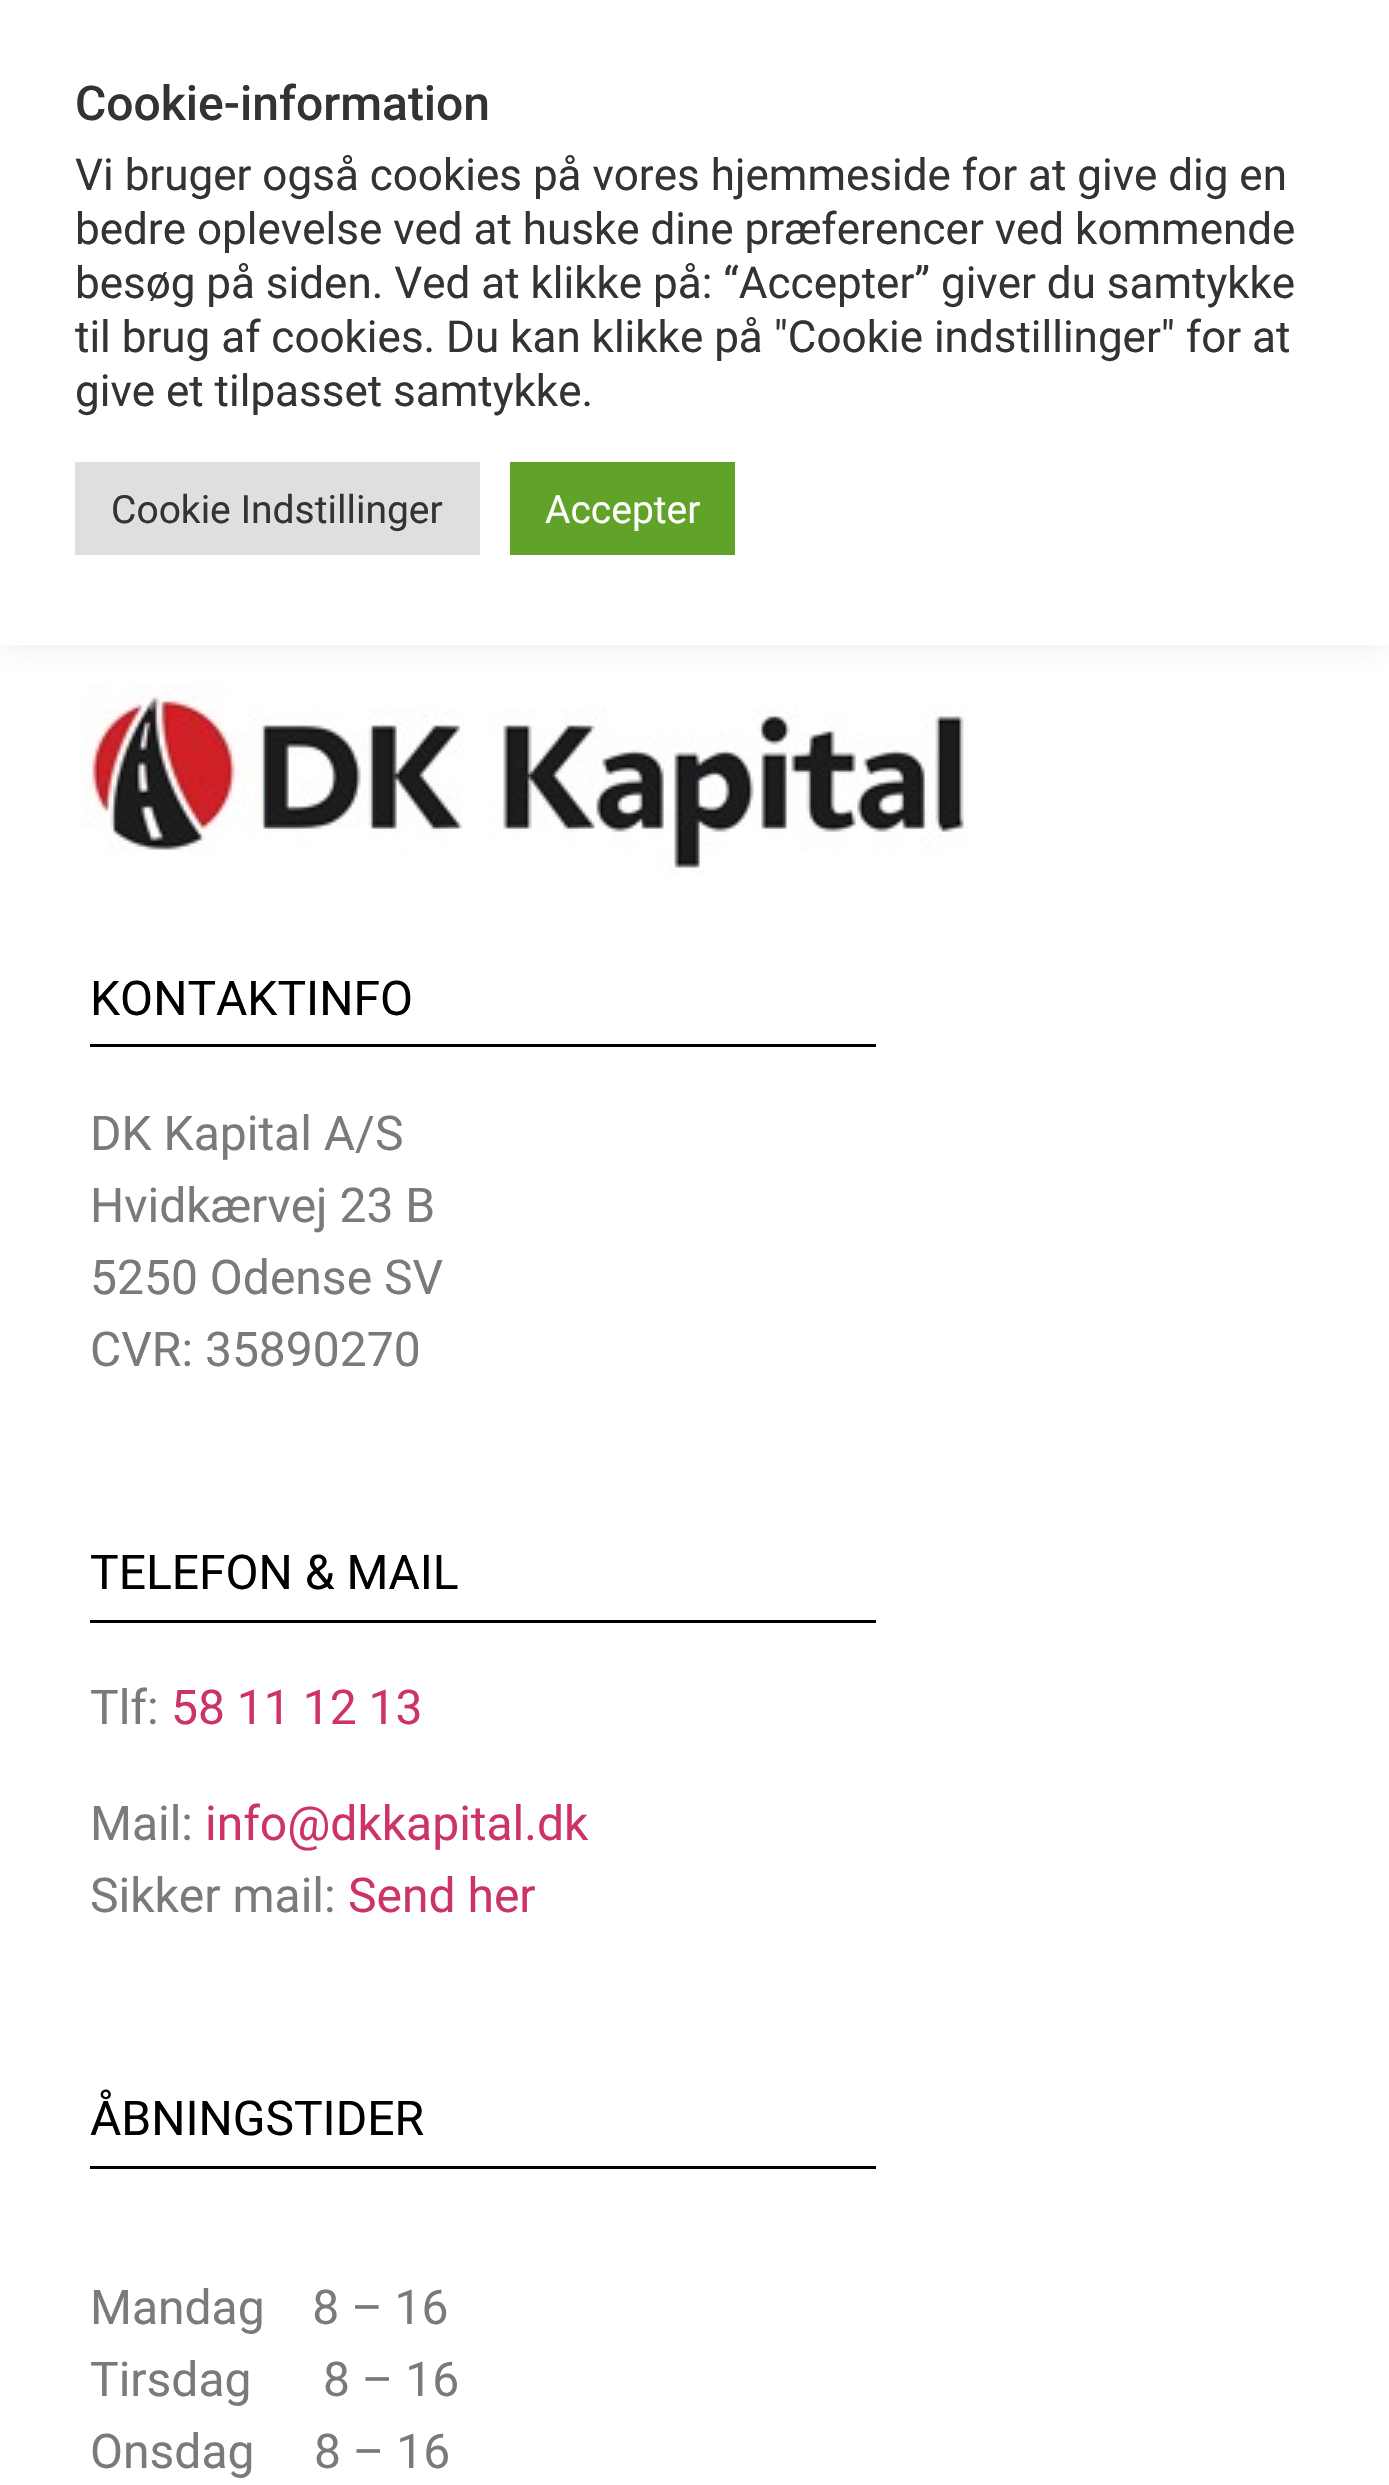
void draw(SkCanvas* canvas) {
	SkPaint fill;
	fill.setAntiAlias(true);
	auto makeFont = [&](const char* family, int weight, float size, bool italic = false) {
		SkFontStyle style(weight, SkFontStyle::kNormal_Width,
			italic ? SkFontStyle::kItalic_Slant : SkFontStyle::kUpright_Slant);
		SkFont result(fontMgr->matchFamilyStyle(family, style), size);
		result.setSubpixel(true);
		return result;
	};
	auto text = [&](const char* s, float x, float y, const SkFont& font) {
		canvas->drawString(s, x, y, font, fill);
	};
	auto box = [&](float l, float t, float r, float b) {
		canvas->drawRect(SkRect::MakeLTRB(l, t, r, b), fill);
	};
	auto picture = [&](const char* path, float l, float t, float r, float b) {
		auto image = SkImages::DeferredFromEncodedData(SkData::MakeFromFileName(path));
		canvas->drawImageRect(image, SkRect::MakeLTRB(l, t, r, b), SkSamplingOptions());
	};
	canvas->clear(0xFFFFFFFF);
	picture("image0.png", 81, 684, 968, 876);
	fill.setColor(0x4DACABAB);
	fill.setMaskFilter(SkMaskFilter::MakeBlur(kNormal_SkBlurStyle, 15));
	canvas->drawRect(SkRect::MakeLTRB(0, -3, 1389, 642), fill);
	fill.setMaskFilter(nullptr);
	fill.setColor(0xFFFFFFFF);
	box(0, 0, 1389, 645);
	fill.setColor(0xFFDEDFE0);
	box(75, 462, 480, 555);
	fill.setColor(0xFF61A229);
	box(510, 462, 735, 555);
	fill.setColor(0xFF000000);
	box(90, 1044, 876, 1047);
	box(90, 1620, 876, 1623);
	box(90, 2166, 876, 2169);
	auto font1 = makeFont("Roboto", 500, 48);
	fill.setColor(0xFF333333);
	text("Cookie-information", 75, 120, font1);
	auto font2 = makeFont("Roboto", 400, 44);
	text("Vi bruger også cookies på vores hjemmeside for at give dig en", 75, 190, font2);
	text("bedre oplevelse ved at huske dine præferencer ved kommende", 75, 244, font2);
	text("besøg på siden. Ved at klikke på: “Accepter” giver du samtykke", 75, 298, font2);
	text("til brug af cookies. Du kan klikke på \"Cookie indstillinger\" for at", 75, 352, font2);
	text("give et tilpasset samtykke.", 75, 406, font2);
	auto font3 = makeFont("Roboto", 400, 39);
	text("Cookie Indstillinger", 111, 523, font3);
	fill.setColor(0xFFFFFFFF);
	text("Accepter", 545, 523, font3);
	auto font4 = makeFont("Roboto", 400, 48);
	fill.setColor(0xFF000000);
	text("KONTAKTINFO", 90, 1015, font4);
	fill.setColor(0xFF7A7A7A);
	text("DK Kapital A/S", 90, 1150, font4);
	text("Hvidkærvej 23 B", 90, 1222, font4);
	text("5250 Odense SV", 90, 1294, font4);
	text("CVR: 35890270", 90, 1366, font4);
	fill.setColor(0xFF000000);
	text("TELEFON & MAIL", 90, 1589, font4);
	fill.setColor(0xFF7A7A7A);
	text("Tlf:", 90, 1724, font4);
	fill.setColor(0xFFCC3366);
	text("58 11 12 13", 171, 1724, font4);
	fill.setColor(0xFF7A7A7A);
	text("Mail:", 90, 1840, font4);
	fill.setColor(0xFFCC3366);
	text("info@dkkapital.dk", 205, 1840, font4);
	fill.setColor(0xFF7A7A7A);
	text("Sikker mail:", 90, 1912, font4);
	fill.setColor(0xFFCC3366);
	text("Send her", 348, 1912, font4);
	fill.setColor(0xFF000000);
	text("ÅBNINGSTIDER", 90, 2135, font4);
	fill.setColor(0xFF7A7A7A);
	text("Mandag    8 – 16", 90, 2324, font4);
	text("Tirsdag      8 – 16", 90, 2396, font4);
	text("Onsdag     8 – 16", 90, 2468, font4);
}
